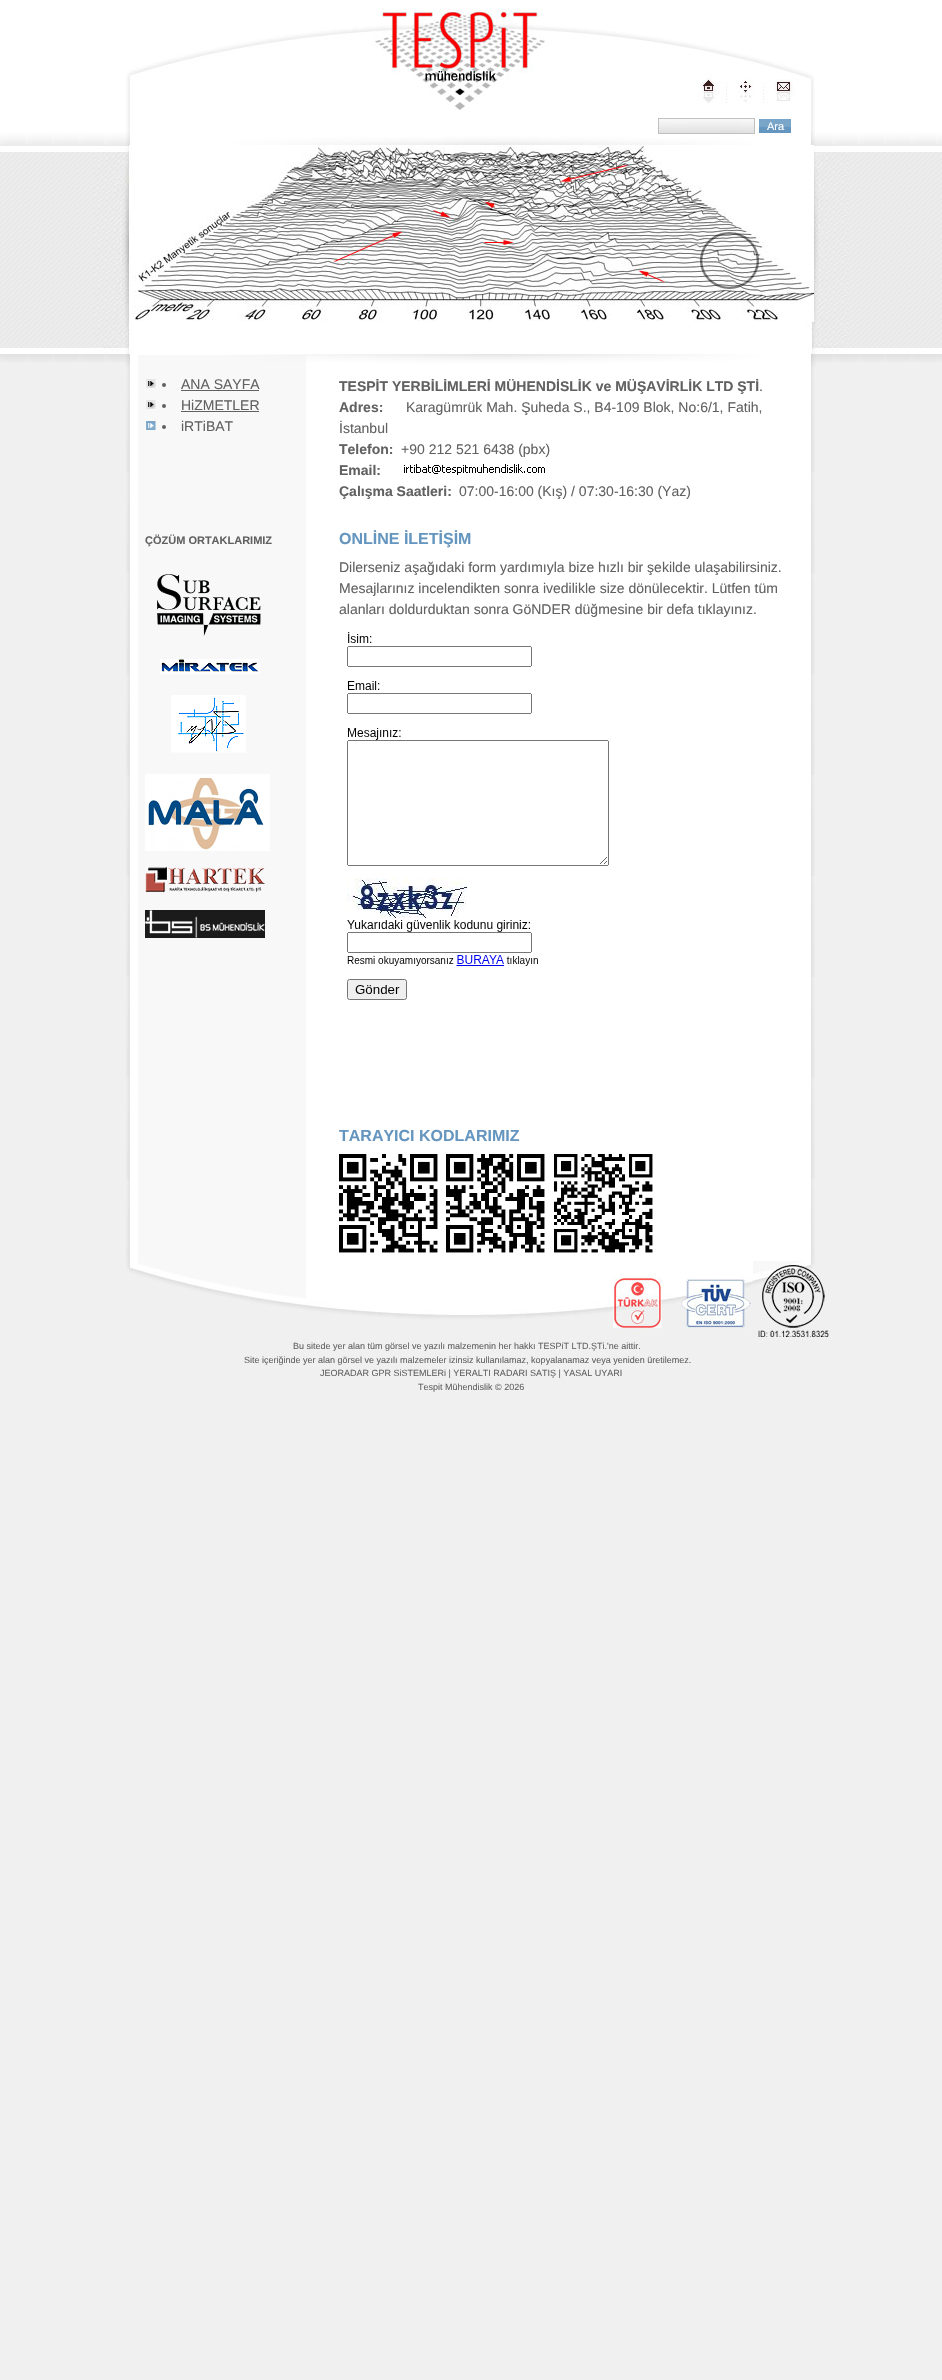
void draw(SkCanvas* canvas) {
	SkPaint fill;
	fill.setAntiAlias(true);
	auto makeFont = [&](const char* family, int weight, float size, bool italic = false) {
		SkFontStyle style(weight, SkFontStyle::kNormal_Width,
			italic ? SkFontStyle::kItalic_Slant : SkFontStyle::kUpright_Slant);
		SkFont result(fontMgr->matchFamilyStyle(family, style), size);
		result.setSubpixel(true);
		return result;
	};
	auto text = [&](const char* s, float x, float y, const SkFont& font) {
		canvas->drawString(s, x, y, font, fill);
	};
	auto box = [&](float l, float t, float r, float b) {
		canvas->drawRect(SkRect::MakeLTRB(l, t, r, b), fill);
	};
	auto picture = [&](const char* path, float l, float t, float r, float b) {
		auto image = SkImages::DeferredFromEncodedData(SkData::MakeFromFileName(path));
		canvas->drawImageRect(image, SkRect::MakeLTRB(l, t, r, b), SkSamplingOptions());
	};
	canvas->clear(0xFFF0F0F0);
	picture("image0.png", 0, 0, 942, 362);
	picture("image1.png", 126, 9, 545, 145);
	picture("image2.png", 545, 27, 815, 106);
	picture("image3.png", 545, 106, 815, 145);
	picture("image4.png", 659, 119, 754, 133);
	fill.setStyle(SkPaint::kStroke_Style);
	fill.setStrokeWidth(1);
	fill.setColor(0xFFC0C0C0);
	canvas->drawRect(SkRect::MakeLTRB(658.5f, 118.5f, 754.5f, 133.5f), fill);
	picture("image5.png", 759, 119, 791, 133);
	picture("image6.png", 94, 145, 848, 354);
	picture("image7.png", 125, 354, 816, 371);
	picture("image8.png", 126, 371, 815, 1261);
	picture("image9.png", 146, 379, 156, 388);
	fill.setStyle(SkPaint::kFill_Style);
	fill.setColor(0xFF616161);
	canvas->drawCircle(164, 385, 2, fill);
	box(181, 390, 259, 391);
	picture("image9.png", 146, 400, 156, 409);
	canvas->drawCircle(164, 406, 2, fill);
	box(181, 411, 259, 412);
	picture("image10.png", 146, 421, 156, 430);
	canvas->drawCircle(164, 427, 2, fill);
	picture("image11.png", 157, 574, 261, 636);
	picture("image12.png", 160, 659, 260, 674);
	picture("image13.png", 171, 695, 246, 753);
	picture("image14.png", 145, 774, 270, 851);
	picture("image15.png", 145, 867, 265, 893);
	picture("image16.png", 145, 910, 265, 938);
	picture("image17.png", 404, 464, 545, 475);
	picture("image18.png", 347, 632, 609, 1000);
	picture("image19.png", 339, 1154, 438, 1253);
	picture("image20.png", 446, 1154, 545, 1253);
	picture("image21.png", 554, 1154, 653, 1253);
	picture("image22.png", 126, 1261, 829, 1340);
	auto font1 = makeFont("Liberation Sans", 400, 11);
	fill.setColor(0xFFFFFFFF);
	text("Ara", 767, 130, font1);
	auto font2 = makeFont("Liberation Sans", 400, 14);
	fill.setColor(0xFF616161);
	text("ANA SAYFA", 181, 389, font2);
	text("HiZMETLER", 181, 410, font2);
	text("iRTiBAT", 181, 431, font2);
	auto font3 = makeFont("Liberation Sans", 700, 11);
	text("ÇÖZÜM ORTAKLARIMIZ", 145, 544, font3);
	auto font4 = makeFont("Liberation Sans", 700, 14);
	text("TESPİT YERBİLİMLERİ MÜHENDİSLİK ve MÜŞAVİRLİK LTD ŞTİ", 339, 391, font4);
	text(".", 759, 391, font2);
	text("Adres:", 339, 412, font4);
	text("Karagümrük Mah. Şuheda S., B4-109 Blok, No:6/1, Fatih,", 406, 412, font2);
	text("İstanbul", 339, 433, font2);
	text("Telefon:", 339, 454, font4);
	text("+90 212 521 6438 (pbx)", 401, 454, font2);
	text("Email:", 339, 475, font4);
	text("Çalışma Saatleri:", 339, 496, font4);
	text("07:00-16:00 (Kış) / 07:30-16:30 (Yaz)", 459, 496, font2);
	auto font5 = makeFont("Liberation Sans", 700, 16);
	fill.setColor(0xFF6596BF);
	text("ONLİNE İLETİŞİM", 339, 544, font5);
	fill.setColor(0xFF616161);
	text("Dilerseniz aşağıdaki form yardımıyla bize hızlı bir şekilde ulaşabilirsiniz.", 339, 572, font2);
	text("Mesajlarınız incelendikten sonra ivedilikle size dönülecektir. Lütfen tüm", 339, 593, font2);
	text("alanları doldurduktan sonra GöNDER düğmesine bir defa tıklayınız.", 339, 614, font2);
	fill.setColor(0xFF6596BF);
	text("TARAYICI KODLARIMIZ", 339, 1141, font5);
	auto font6 = makeFont("Liberation Sans", 400, 9);
	fill.setColor(0xFF616161);
	text("Bu sitede yer alan tüm görsel ve yazılı malzemenin her hakkı TESPiT LTD.ŞTi.'ne aittir.", 293, 1349, font6);
	text("Site içeriğinde yer alan görsel ve yazılı malzemeler izinsiz kullanılamaz, kopyalanamaz veya yeniden üretilemez.", 244, 1363, font6);
	text("JEORADAR GPR SiSTEMLERi | YERALTI RADARI SATIŞ | YASAL UYARI", 320, 1376, font6);
	text("Tespit Mühendislik © 2026", 418, 1390, font6);
}
